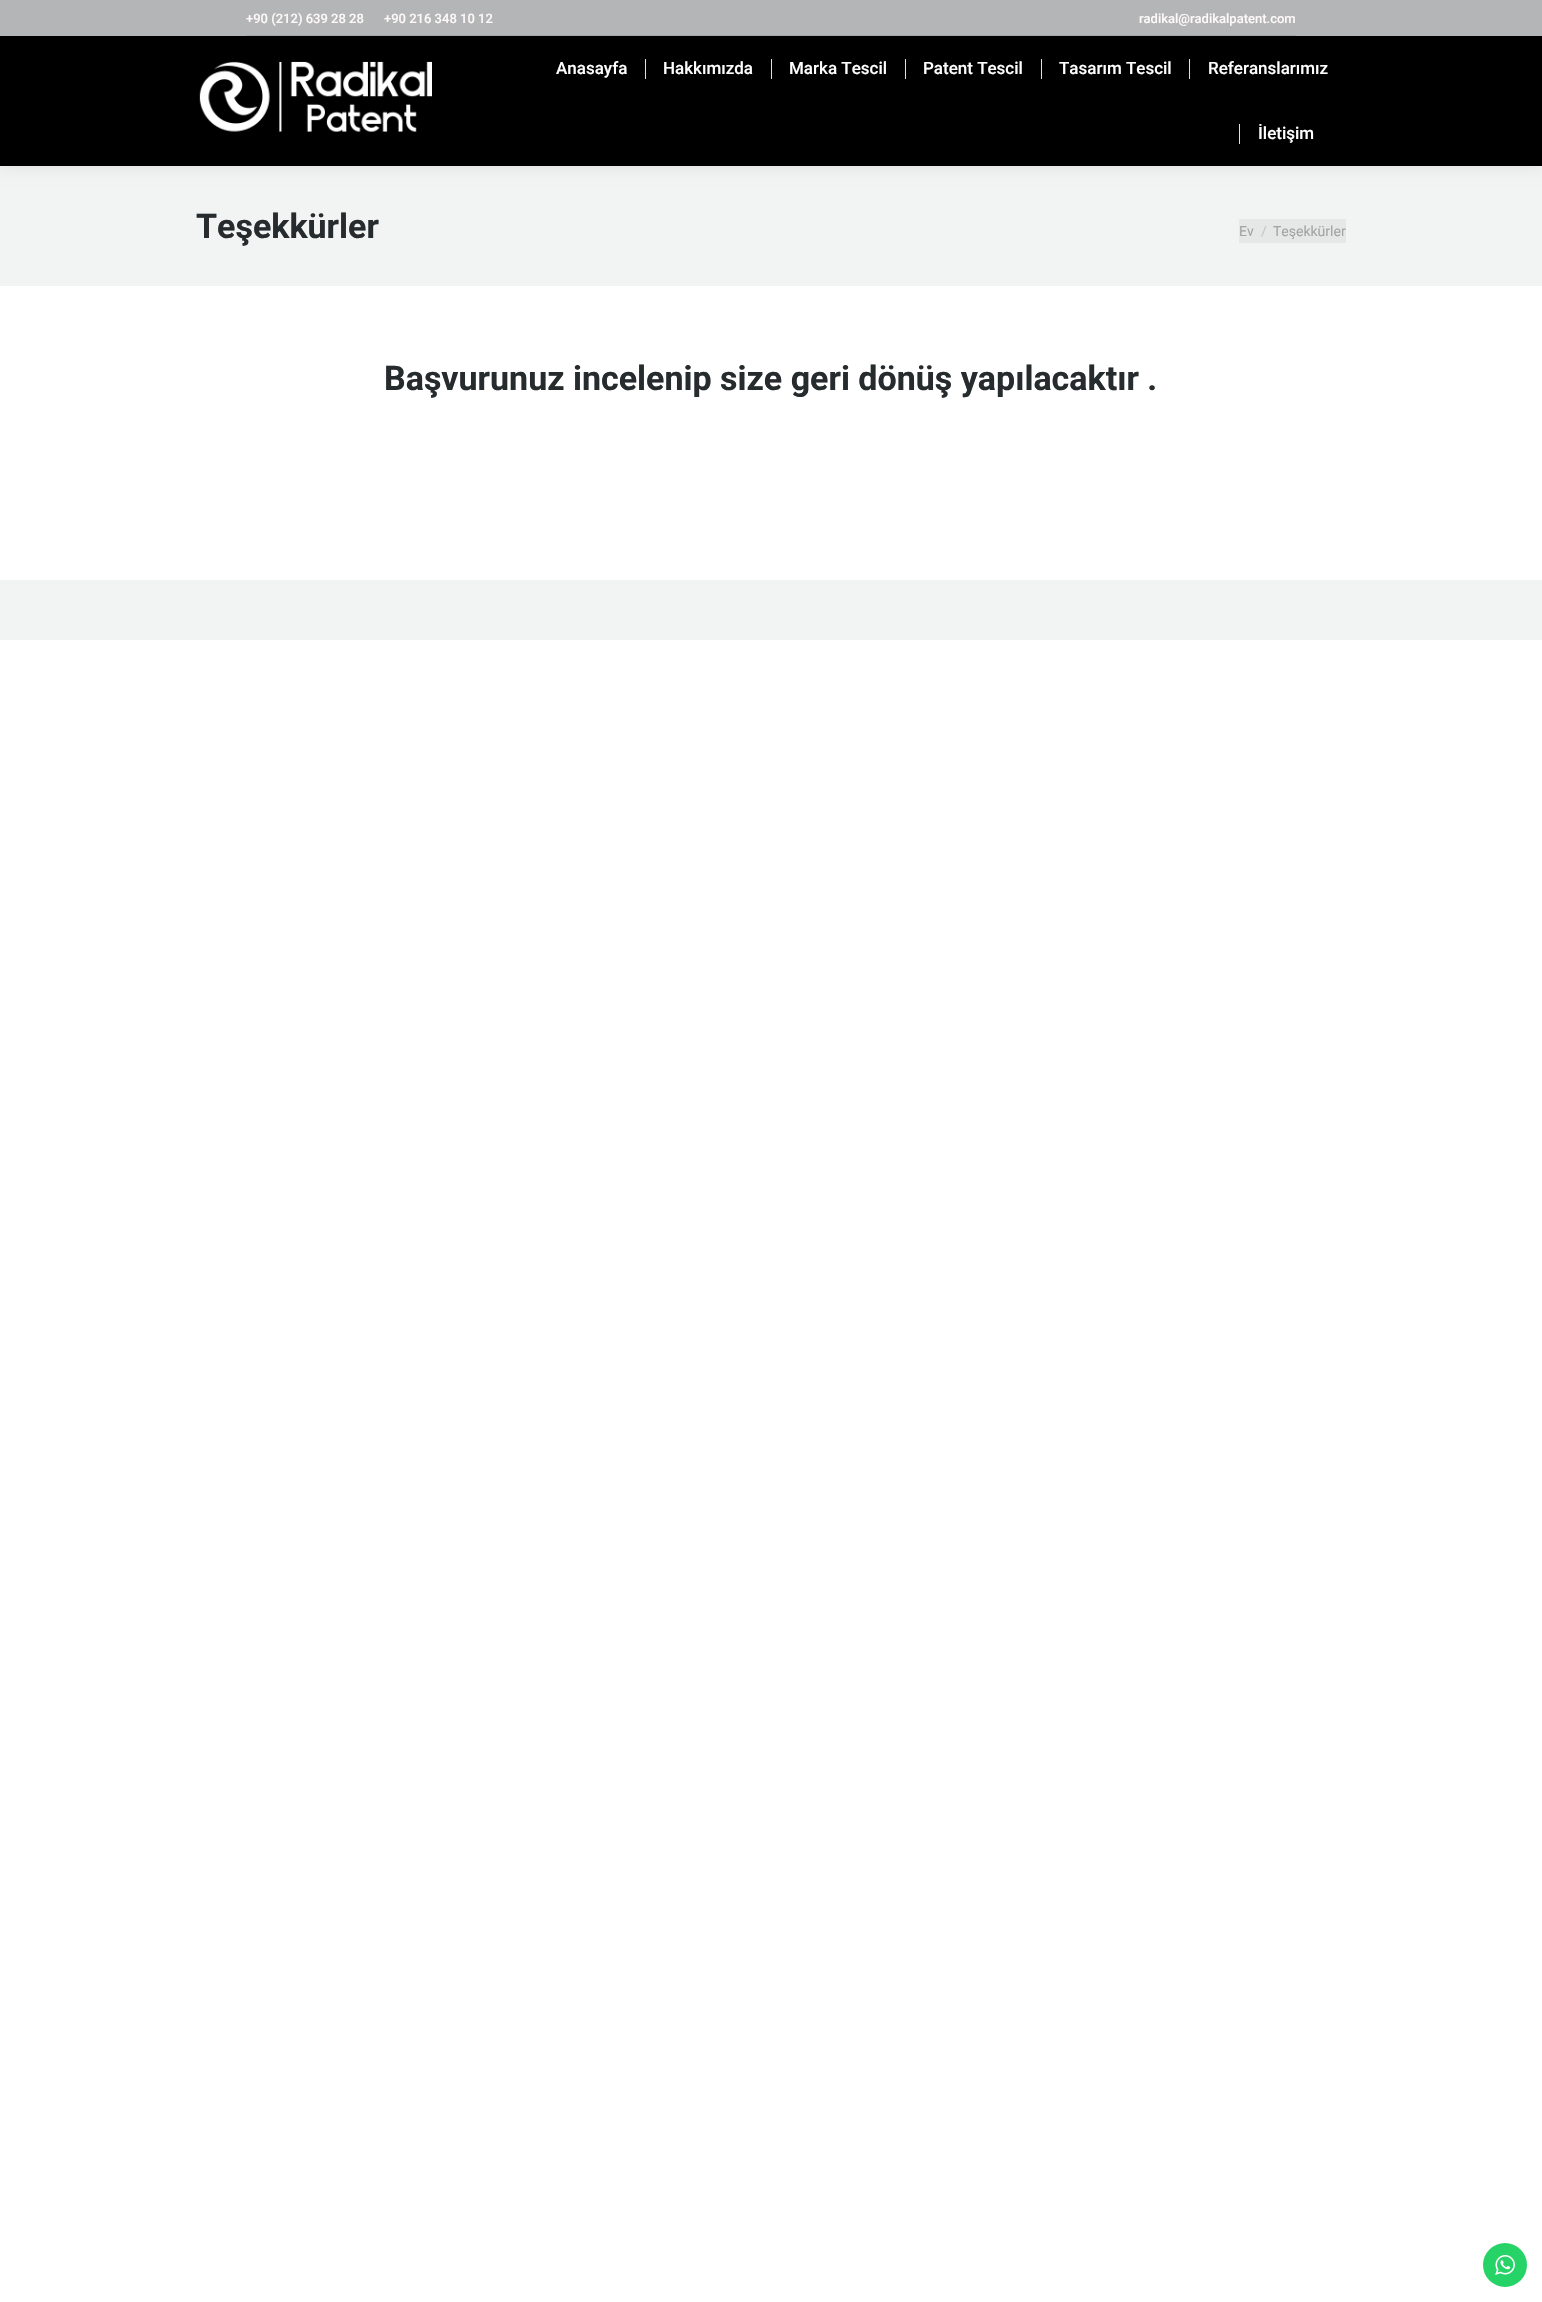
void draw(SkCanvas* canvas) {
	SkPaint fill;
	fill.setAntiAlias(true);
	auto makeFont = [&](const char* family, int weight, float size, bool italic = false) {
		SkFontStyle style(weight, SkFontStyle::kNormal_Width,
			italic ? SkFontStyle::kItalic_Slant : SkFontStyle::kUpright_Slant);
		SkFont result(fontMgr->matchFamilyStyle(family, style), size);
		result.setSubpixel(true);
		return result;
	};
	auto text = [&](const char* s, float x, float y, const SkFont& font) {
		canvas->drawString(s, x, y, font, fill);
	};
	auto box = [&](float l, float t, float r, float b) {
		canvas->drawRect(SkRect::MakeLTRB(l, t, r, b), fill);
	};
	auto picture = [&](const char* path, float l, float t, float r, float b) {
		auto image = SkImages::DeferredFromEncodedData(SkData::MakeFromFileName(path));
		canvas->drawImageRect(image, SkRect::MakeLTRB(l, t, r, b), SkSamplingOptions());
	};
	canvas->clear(0xFFFFFFFF);
	fill.setColor(0xFFF2F3F3);
	box(0, 166, 1542, 286);
	fill.setColor(0x12000000);
	fill.setMaskFilter(SkMaskFilter::MakeBlur(kNormal_SkBlurStyle, 7.5f));
	canvas->drawRect(SkRect::MakeLTRB(-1, -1, 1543, 167), fill);
	fill.setMaskFilter(nullptr);
	fill.setColor(0xFF000000);
	box(0, 36, 1542, 166);
	fill.setColor(0xFFB3B5B6);
	box(0, 0, 1542, 36);
	fill.setColor(0xFFA5A7A8);
	box(246, 35, 1296, 36);
	picture("image0.png", 199, 61, 432, 132);
	fill.setColor(0xFFE0E0E0);
	box(645, 59, 646, 79);
	box(771, 59, 772, 79);
	box(905, 59, 906, 79);
	box(1041, 59, 1042, 79);
	box(1189, 59, 1190, 79);
	box(1239, 124, 1240, 144);
	fill.setColor(0xFFE6E7E7);
	box(1239, 219, 1346, 243);
	fill.setColor(0xFFF2F3F3);
	box(0, 580, 1542, 640);
	fill.setColor(0xFF25D366);
	canvas->drawCircle(1505, 2265, 22, fill);
	picture("image1.png", 1495, 2255, 1515, 2275);
	auto font1 = makeFont("Roboto", 500, 13);
	fill.setColor(0xFFFFF9F9);
	text("+90 (212) 639 28 28", 246, 23, font1);
	text("+90 216 348 10 12", 384, 23, font1);
	text("radikal@radikalpatent.com", 1139, 23, font1);
	auto font2 = makeFont("Roboto", 500, 17);
	fill.setColor(0xFFFFFFFF);
	text("Anasayfa", 556, 74, font2);
	text("Hakkımızda", 663, 74, font2);
	text("Marka Tescil", 789, 74, font2);
	text("Patent Tescil", 923, 74, font2);
	text("Tasarım Tescil", 1059, 74, font2);
	text("Referanslarımız", 1208, 74, font2);
	text("İletişim", 1258, 139, font2);
	auto font3 = makeFont("Roboto", 700, 34);
	fill.setColor(0xFF262B2E);
	text("Teşekkürler", 196, 238, font3);
	auto font4 = makeFont("Roboto", 400, 14);
	fill.setColor(0xFFA2A5A6);
	text("Ev", 1239, 236, font4);
	fill.setColor(0xFFC4C6C7);
	text("/", 1261, 236, font4);
	fill.setColor(0xFFA2A5A6);
	text("Teşekkürler", 1273, 236, font4);
	fill.setColor(0xFF262B2E);
	text("Başvurunuz incelenip size geri dönüş yapılacaktır .", 384, 390, font3);
}
